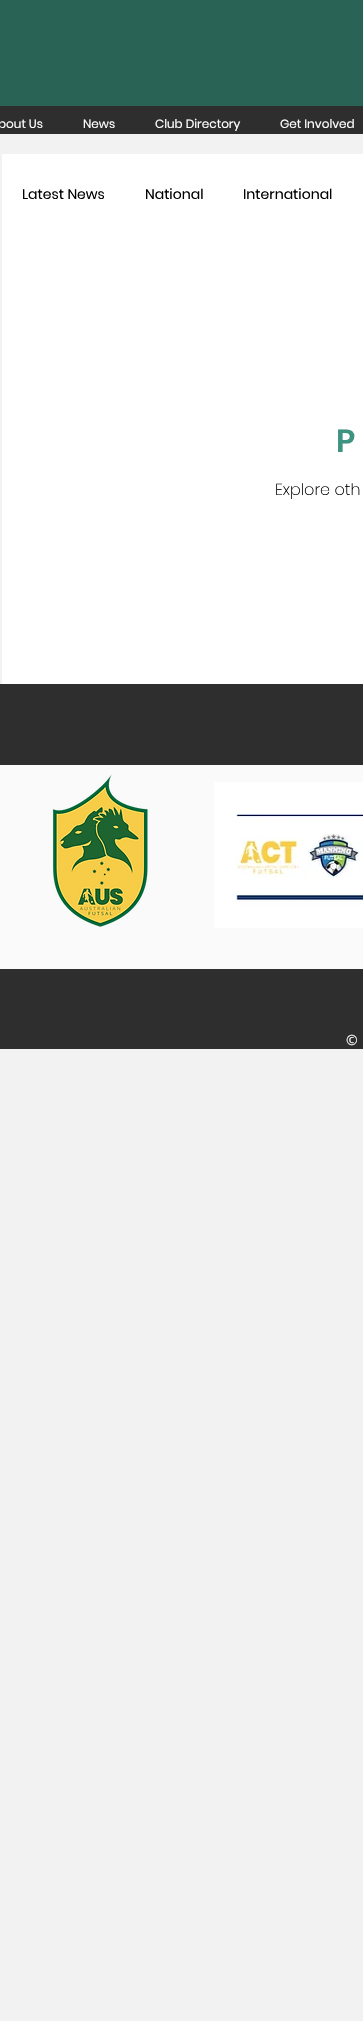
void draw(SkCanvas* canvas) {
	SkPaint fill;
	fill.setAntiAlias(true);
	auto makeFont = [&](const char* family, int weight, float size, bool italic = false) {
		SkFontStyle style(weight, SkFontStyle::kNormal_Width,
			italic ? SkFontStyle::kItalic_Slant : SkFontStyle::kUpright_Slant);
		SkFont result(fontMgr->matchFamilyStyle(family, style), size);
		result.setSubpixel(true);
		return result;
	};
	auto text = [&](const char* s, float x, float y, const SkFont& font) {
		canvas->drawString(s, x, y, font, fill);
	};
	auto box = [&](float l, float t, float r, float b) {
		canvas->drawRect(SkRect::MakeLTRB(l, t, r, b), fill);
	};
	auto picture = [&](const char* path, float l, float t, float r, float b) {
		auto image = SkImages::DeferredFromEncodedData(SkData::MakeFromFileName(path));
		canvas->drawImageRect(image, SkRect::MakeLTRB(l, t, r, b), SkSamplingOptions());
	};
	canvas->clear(0xFFF2F2F2);
	fill.setColor(0xFF2F2E2E);
	box(0, 106, 363, 134);
	fill.setColor(0xFF296356);
	box(0, 0, 363, 106);
	fill.setColor(0xFFFFFFFF);
	box(2, 154, 363, 684);
	fill.setColor(0xFF2F2E2E);
	box(0, 684, 363, 1049);
	fill.setColor(0xFFFAFAFA);
	box(0, 765, 363, 969);
	picture("image0.png", 52, 774, 148, 927);
	picture("image1.png", 214, 782, 363, 928);
	auto font1 = makeFont("Poppins", 400, 12);
	fill.setColor(0xFFFFFFFF);
	text("bout Us", -2, 128, font1);
	text("News", 83, 128, font1);
	text("Club Directory", 155, 128, font1);
	text("Get Involved", 280, 128, font1);
	auto font2 = makeFont("Poppins", 400, 14);
	fill.setColor(0xFF000000);
	text("Latest News", 22, 199, font2);
	text("National", 145, 199, font2);
	text("International", 243, 199, font2);
	auto font3 = makeFont("Poppins", 600, 32);
	fill.setColor(0xFF3E9481);
	text("P", 336, 452, font3);
	auto font4 = makeFont("Poppins", 200, 16);
	fill.setColor(0xFF000000);
	text("Explore oth", 275, 495, font4);
	auto font5 = makeFont("Open Sans", 400, 14);
	fill.setColor(0xFFFFFFFF);
	text("©", 346, 1045, font5);
}
